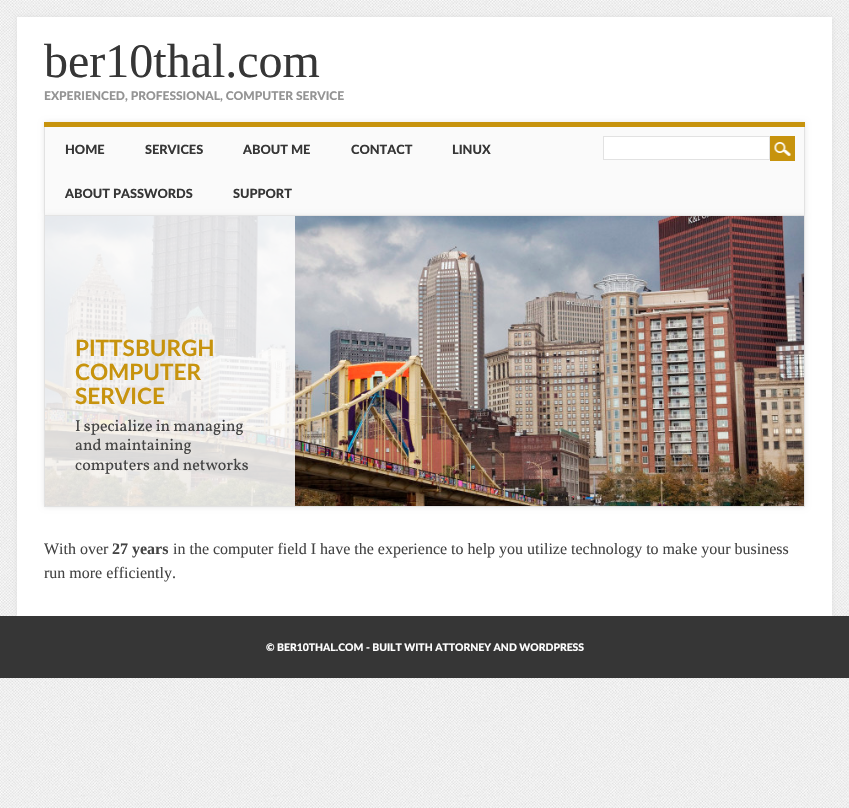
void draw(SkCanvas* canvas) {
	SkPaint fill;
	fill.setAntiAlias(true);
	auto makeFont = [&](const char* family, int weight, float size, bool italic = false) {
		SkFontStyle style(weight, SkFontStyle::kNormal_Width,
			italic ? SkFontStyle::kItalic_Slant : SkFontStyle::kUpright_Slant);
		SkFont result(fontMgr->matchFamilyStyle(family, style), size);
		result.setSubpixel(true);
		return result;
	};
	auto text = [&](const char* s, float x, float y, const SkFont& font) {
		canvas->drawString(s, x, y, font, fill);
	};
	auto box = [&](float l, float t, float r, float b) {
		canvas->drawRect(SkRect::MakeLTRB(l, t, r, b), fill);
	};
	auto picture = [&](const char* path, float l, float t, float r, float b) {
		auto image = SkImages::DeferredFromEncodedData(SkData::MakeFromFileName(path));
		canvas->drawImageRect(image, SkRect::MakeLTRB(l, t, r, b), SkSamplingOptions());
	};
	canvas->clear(0xFFFFFFFF);
	picture("image0.png", 0, 0, 849, 808);
	fill.setColor(0xFFDEDEDE);
	fill.setMaskFilter(SkMaskFilter::MakeBlur(kNormal_SkBlurStyle, 2.5f));
	canvas->drawRect(SkRect::MakeLTRB(17, 17, 832, 616), fill);
	fill.setMaskFilter(nullptr);
	fill.setColor(0xFFFFFFFF);
	box(17, 17, 832, 616);
	fill.setColor(0xFFE7E7E7);
	fill.setMaskFilter(SkMaskFilter::MakeBlur(kNormal_SkBlurStyle, 2.5f));
	canvas->drawRect(SkRect::MakeLTRB(44, 122, 805, 216), fill);
	fill.setMaskFilter(nullptr);
	fill.setColor(0xFFC7930D);
	box(44, 122, 805, 127);
	fill.setColor(0xFFFAFAFA);
	box(45, 127, 804, 215);
	fill.setColor(0xFFE2E2E2);
	box(804, 127, 805, 216);
	box(44, 215, 805, 216);
	box(44, 127, 45, 216);
	fill.setColor(0xFFFFFFFF);
	canvas->drawRect(SkRect::MakeLTRB(603.5f, 136.5f, 769.5f, 159.5f), fill);
	fill.setStyle(SkPaint::kStroke_Style);
	fill.setStrokeWidth(1);
	fill.setColor(0xFFE2E2E2);
	canvas->drawRect(SkRect::MakeLTRB(603.5f, 136.5f, 769.5f, 159.5f), fill);
	fill.setStyle(SkPaint::kFill_Style);
	fill.setColor(0xFFC7930D);
	box(770, 136, 795, 161);
	picture("image1.png", 774, 142, 791, 156);
	fill.setColor(0xFFE7E7E7);
	fill.setMaskFilter(SkMaskFilter::MakeBlur(kNormal_SkBlurStyle, 2.5f));
	canvas->drawRect(SkRect::MakeLTRB(44, 216, 805, 507), fill);
	fill.setMaskFilter(nullptr);
	fill.setColor(0xFFE2E2E2);
	box(804, 216, 805, 507);
	box(44, 506, 805, 507);
	box(44, 216, 45, 507);
	picture("image2.png", 45, 216, 804, 506);
	fill.setColor(0xD9FFFFFF);
	box(45, 216, 295, 506);
	fill.setColor(0xFF363636);
	box(0, 616, 849, 678);
	auto font1 = makeFont("Liberation Serif", 400, 48);
	text("ber10thal.com", 44, 77, font1);
	auto font2 = makeFont("Lato", 900, 12);
	fill.setColor(0xFF949494);
	text("EXPERIENCED, PROFESSIONAL, COMPUTER SERVICE", 44, 100, font2);
	auto font3 = makeFont("Lato", 900, 12.75f);
	fill.setColor(0xFF363636);
	text("HOME", 65, 154, font3);
	text("SERVICES", 145, 154, font3);
	text("ABOUT ME", 243, 154, font3);
	text("CONTACT", 351, 154, font3);
	text("LINUX", 452, 154, font3);
	text("ABOUT PASSWORDS", 65, 198, font3);
	text("SUPPORT", 233, 198, font3);
	auto font4 = makeFont("Lato", 700, 22.5f);
	fill.setColor(0xFFC7930D);
	text("PITTSBURGH", 75, 356, font4);
	text("COMPUTER", 75, 380, font4);
	text("SERVICE", 75, 404, font4);
	auto font5 = makeFont("Vollkorn", 400, 16);
	fill.setColor(0xFF444444);
	text("I specialize in managing", 75, 431, font5);
	text("and maintaining", 75, 450, font5);
	text("computers and networks", 75, 470, font5);
	auto font6 = makeFont("Liberation Serif", 400, 16);
	text("With over", 44, 554, font6);
	auto font7 = makeFont("Liberation Serif", 700, 16);
	text("27 years", 112, 554, font7);
	text("in the computer field I have the experience to help you utilize technology to make your business", 173, 554, font6);
	text("run more efficiently.", 44, 578, font6);
	auto font8 = makeFont("Lato", 900, 10.4f);
	fill.setColor(0xFFFFFFFF);
	text("© BER10THAL.COM - BUILT WITH ATTORNEY AND WORDPRESS", 266, 651, font8);
}
